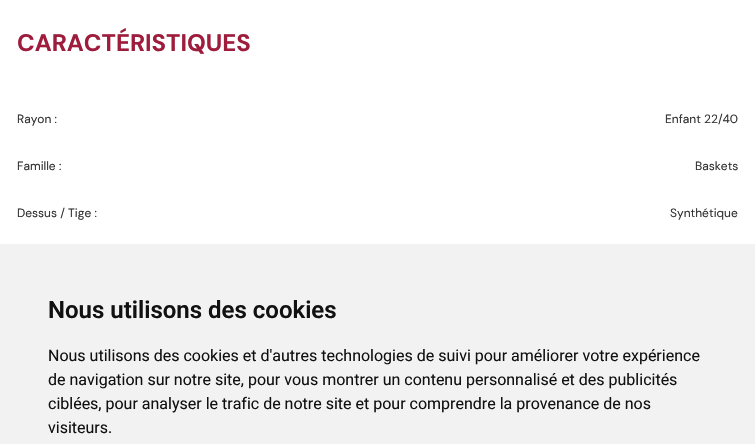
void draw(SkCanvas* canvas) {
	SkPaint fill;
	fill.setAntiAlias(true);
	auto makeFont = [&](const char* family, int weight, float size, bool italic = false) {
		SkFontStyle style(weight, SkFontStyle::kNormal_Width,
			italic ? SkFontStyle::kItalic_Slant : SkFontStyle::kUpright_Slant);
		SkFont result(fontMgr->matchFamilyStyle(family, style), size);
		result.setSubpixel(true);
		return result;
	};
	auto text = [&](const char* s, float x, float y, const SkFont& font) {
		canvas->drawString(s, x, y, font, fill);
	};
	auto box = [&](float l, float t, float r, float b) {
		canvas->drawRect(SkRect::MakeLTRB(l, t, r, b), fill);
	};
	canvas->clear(0xFFFFFFFF);
	fill.setColor(0xFFF2F2F2);
	box(0, 244, 755, 444);
	auto font1 = makeFont("DM Sans", 700, 24);
	fill.setColor(0xFF9E1C3C);
	text("CARACTÉRISTIQUES", 17, 51, font1);
	auto font2 = makeFont("DM Sans", 400, 12);
	fill.setColor(0xFF333333);
	text("Rayon :", 17, 123, font2);
	text("Enfant 22/40", 665, 123, font2);
	text("Famille :", 17, 170, font2);
	text("Baskets", 695, 170, font2);
	text("Dessus / Tige :", 17, 217, font2);
	text("Synthétique", 670, 217, font2);
	auto font3 = makeFont("Roboto", 600, 24);
	fill.setColor(0xFF111111);
	text("Nous utilisons des cookies", 48, 318, font3);
	auto font4 = makeFont("Roboto", 400, 16);
	text("Nous utilisons des cookies et d'autres technologies de suivi pour améliorer votre expérience", 48, 361, font4);
	text("de navigation sur notre site, pour vous montrer un contenu personnalisé et des publicités", 48, 385, font4);
	text("ciblées, pour analyser le trafic de notre site et pour comprendre la provenance de nos", 48, 409, font4);
	text("visiteurs.", 48, 433, font4);
}
